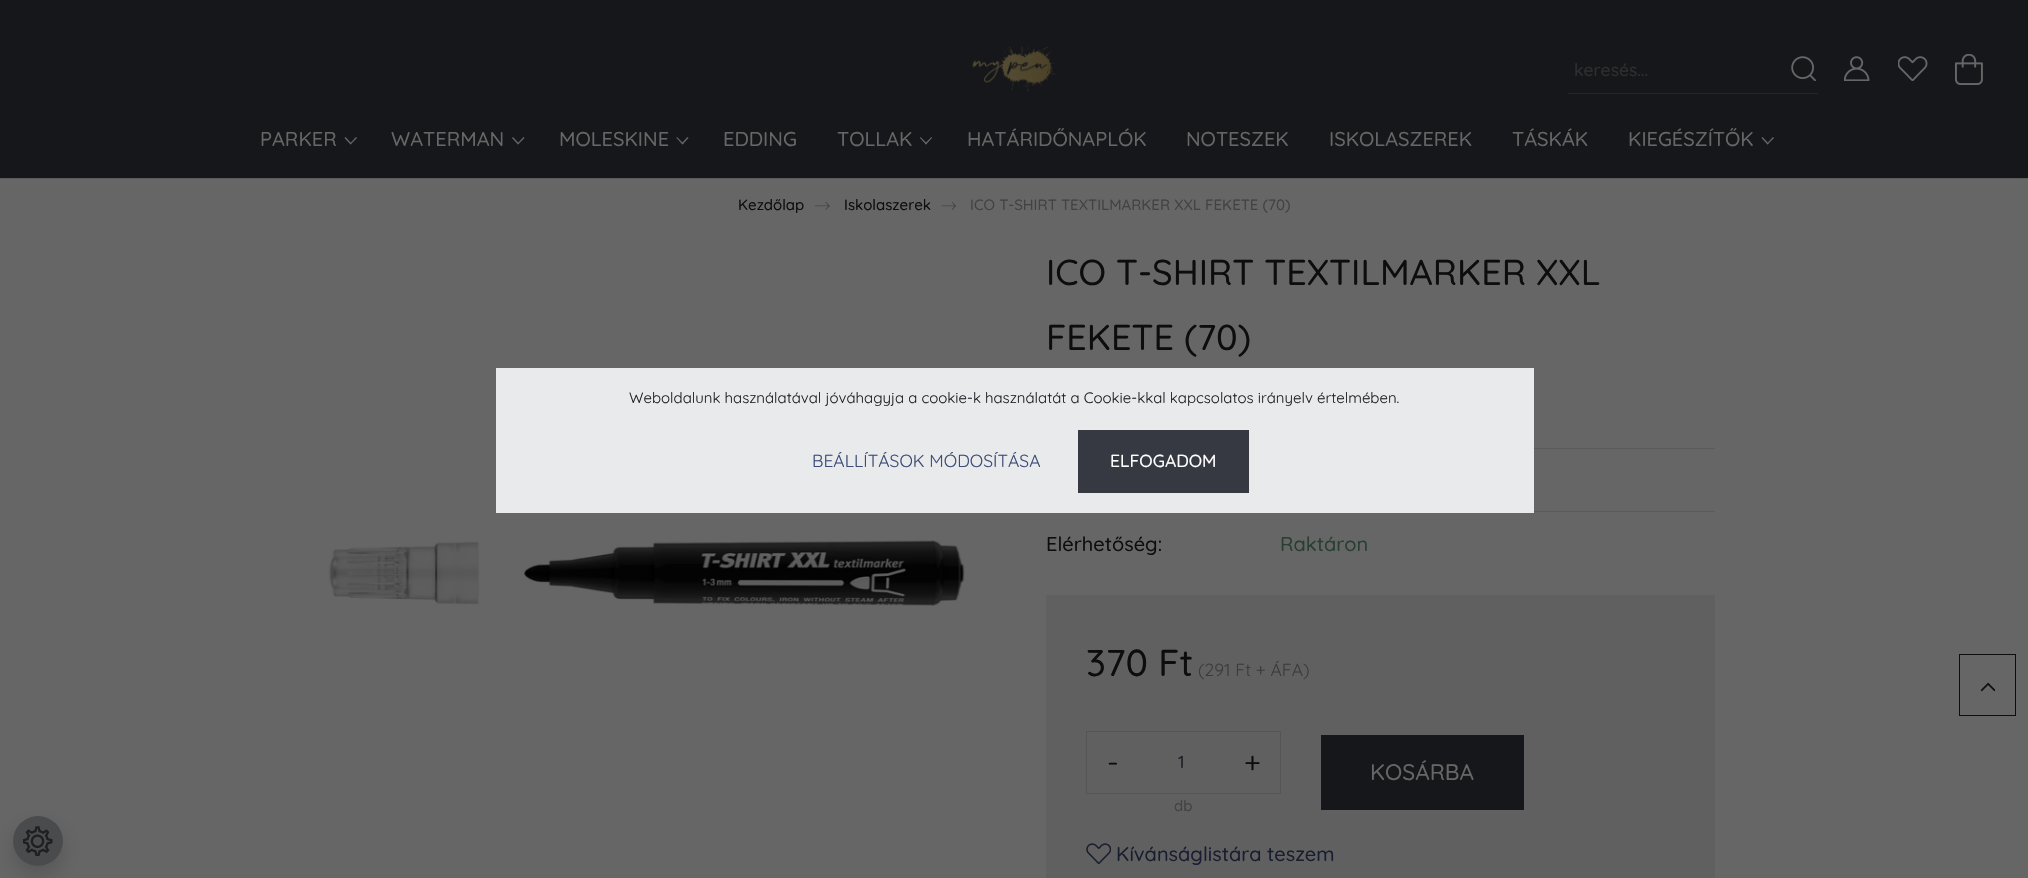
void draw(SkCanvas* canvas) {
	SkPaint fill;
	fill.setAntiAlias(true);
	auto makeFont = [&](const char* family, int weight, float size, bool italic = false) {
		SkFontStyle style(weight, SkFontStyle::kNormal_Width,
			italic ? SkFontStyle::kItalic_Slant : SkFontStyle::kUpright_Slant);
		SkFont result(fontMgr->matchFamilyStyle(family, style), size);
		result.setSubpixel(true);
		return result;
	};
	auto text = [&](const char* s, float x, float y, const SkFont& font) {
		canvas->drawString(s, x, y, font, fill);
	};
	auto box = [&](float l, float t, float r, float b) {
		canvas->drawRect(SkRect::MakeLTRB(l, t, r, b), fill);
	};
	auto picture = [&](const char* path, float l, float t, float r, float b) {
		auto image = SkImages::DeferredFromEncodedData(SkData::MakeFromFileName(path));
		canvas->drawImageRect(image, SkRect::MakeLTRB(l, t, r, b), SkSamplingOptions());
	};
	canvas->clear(0xFF666666);
	fill.setColor(0xFFE9EAEB);
	box(496, 368, 1534, 513);
	fill.setColor(0x26000000);
	fill.setMaskFilter(SkMaskFilter::MakeBlur(kNormal_SkBlurStyle, 10));
	canvas->drawRoundRect(SkRect::MakeLTRB(13, 826, 63, 876), 25, 25, fill);
	fill.setMaskFilter(nullptr);
	fill.setColor(0xFF4A4B4C);
	canvas->drawCircle(38, 841, 25, fill);
	picture("image0.png", 23, 826, 53, 856);
	fill.setColor(0xFF16171A);
	box(0, 0, 2028, 178);
	picture("image1.png", 972, 46, 1056, 92);
	fill.setColor(0xFF252525);
	box(1568, 93, 1818, 94);
	picture("image2.png", 1791, 56, 1816, 81);
	picture("image3.png", 1844, 56, 1870, 81);
	picture("image4.png", 1898, 56, 1928, 81);
	picture("image5.png", 1955, 54, 1983, 85);
	fill.setColor(0xFF666666);
	canvas->drawPath(SkPathBuilder().moveTo(356, 137).lineTo(357, 138).lineTo(350.5f, 144.5f).lineTo(350, 143.5f).close().detach(), fill);
	canvas->drawPath(SkPathBuilder().moveTo(345.5f, 137).lineTo(351.5f, 143.5f).lineTo(350.5f, 144.5f).lineTo(344.5f, 138).close().detach(), fill);
	canvas->drawPath(SkPathBuilder().moveTo(523.5f, 137).lineTo(524.5f, 138).lineTo(518, 144.5f).lineTo(517.5f, 143.5f).close().detach(), fill);
	canvas->drawPath(SkPathBuilder().moveTo(513, 137).lineTo(519, 143.5f).lineTo(518, 144.5f).lineTo(512, 138).close().detach(), fill);
	canvas->drawPath(SkPathBuilder().moveTo(687.5f, 137).lineTo(688.5f, 138).lineTo(682.5f, 144.5f).lineTo(681.5f, 143.5f).close().detach(), fill);
	canvas->drawPath(SkPathBuilder().moveTo(677, 137).lineTo(683.5f, 143.5f).lineTo(682.5f, 144.5f).lineTo(676.5f, 138).close().detach(), fill);
	canvas->drawPath(SkPathBuilder().moveTo(931.5f, 137).lineTo(932, 138).lineTo(926, 144.5f).lineTo(925, 143.5f).close().detach(), fill);
	canvas->drawPath(SkPathBuilder().moveTo(920.5f, 137).lineTo(927, 143.5f).lineTo(926, 144.5f).lineTo(920, 138).close().detach(), fill);
	canvas->drawPath(SkPathBuilder().moveTo(1773, 137).lineTo(1774, 138).lineTo(1767.5f, 144.5f).lineTo(1767, 143.5f).close().detach(), fill);
	canvas->drawPath(SkPathBuilder().moveTo(1762.5f, 137).lineTo(1768.5f, 143.5f).lineTo(1767.5f, 144.5f).lineTo(1761.5f, 138).close().detach(), fill);
	fill.setColor(0xFF5B5B5B);
	box(0, 178, 2028, 179);
	picture("image6.png", 815, 202, 830, 210);
	picture("image7.png", 941, 201, 956, 210);
	picture("image8.png", 328, 540, 965, 606);
	box(1534, 448, 1715, 449);
	box(1534, 511, 1715, 512);
	fill.setColor(0xFF606060);
	box(1046, 595, 1715, 878);
	fill.setStyle(SkPaint::kStroke_Style);
	fill.setStrokeWidth(1);
	fill.setColor(0xFF555555);
	canvas->drawRect(SkRect::MakeLTRB(1086.5f, 731.5f, 1280.5f, 793.5f), fill);
	fill.setStyle(SkPaint::kFill_Style);
	fill.setColor(0xFF16171A);
	box(1321, 735, 1524, 810);
	picture("image9.png", 1086, 843, 1111, 865);
	fill.setStyle(SkPaint::kStroke_Style);
	fill.setColor(0xFF0D0D0D);
	canvas->drawRect(SkRect::MakeLTRB(1959.5f, 654.5f, 2015.5f, 715.5f), fill);
	picture("image10.png", 1980, 682, 1995, 692);
	fill.setStyle(SkPaint::kFill_Style);
	fill.setColor(0xFF363942);
	box(1078, 430, 1249, 493);
	auto font1 = makeFont("Quicksand", 500, 17.5f);
	fill.setColor(0xFF2F2F2F);
	text("keresés...", 1574, 76, font1);
	auto font2 = makeFont("Quicksand", 500, 20);
	fill.setColor(0xFF666666);
	text("PARKER", 260, 146, font2);
	text("WATERMAN", 391, 146, font2);
	text("MOLESKINE", 559, 146, font2);
	text("EDDING", 723, 146, font2);
	text("TOLLAK", 837, 146, font2);
	text("HATÁRIDŐNAPLÓK", 967, 146, font2);
	text("NOTESZEK", 1186, 146, font2);
	text("ISKOLASZEREK", 1329, 146, font2);
	text("TÁSKÁK", 1512, 146, font2);
	text("KIEGÉSZÍTŐK", 1628, 146, font2);
	auto font3 = makeFont("Quicksand", 500, 15);
	fill.setColor(0xFF0D0D0D);
	text("Kezdőlap", 738, 210, font3);
	text("Iskolaszerek", 844, 210, font3);
	fill.setColor(0xFF424242);
	text("ICO T-SHIRT TEXTILMARKER XXL FEKETE (70)", 970, 210, font3);
	auto font4 = makeFont("Quicksand", 500, 36);
	fill.setColor(0xFF0D0D0D);
	text("ICO T-SHIRT TEXTILMARKER XXL", 1046, 285, font4);
	text("FEKETE (70)", 1046, 350, font4);
	text("Elérhetőség:", 1046, 551, font2);
	fill.setColor(0xFF284032);
	text("Raktáron", 1280, 551, font2);
	auto font5 = makeFont("Quicksand", 500, 37.5f);
	fill.setColor(0xFF0D0D0D);
	text("370 Ft", 1086, 676, font5);
	auto font6 = makeFont("Quicksand", 400, 17.5f);
	fill.setColor(0xFF3A3C3C);
	text("(291 Ft + ÁFA)", 1198, 676, font6);
	auto font7 = makeFont("Quicksand", 400, 30);
	fill.setColor(0xFF0D0D0D);
	text("-", 1107, 773, font7);
	fill.setColor(0xFF1D2023);
	text("1", 1178, 768, font1);
	fill.setColor(0xFF0D0D0D);
	text("+", 1244, 773, font7);
	fill.setColor(0xFF424242);
	text("db", 1174, 811, font3);
	auto font8 = makeFont("Quicksand", 500, 22.5f);
	fill.setColor(0xFF666666);
	text("KOSÁRBA", 1370, 780, font8);
	fill.setColor(0xFF181E30);
	text("Kívánságlistára teszem", 1116, 861, font2);
	auto font9 = makeFont("Quicksand", 400, 15);
	fill.setColor(0xFF212529);
	text("Weboldalunk használatával jóváhagyja a cookie-k használatát a Cookie-kkal kapcsolatos irányelv értelmében.", 629, 403, font9);
	fill.setColor(0xFF3C4C77);
	text("BEÁLLÍTÁSOK MÓDOSÍTÁSA", 812, 467, font6);
	fill.setColor(0xFFFFFFFF);
	text("ELFOGADOM", 1110, 467, font1);
}
